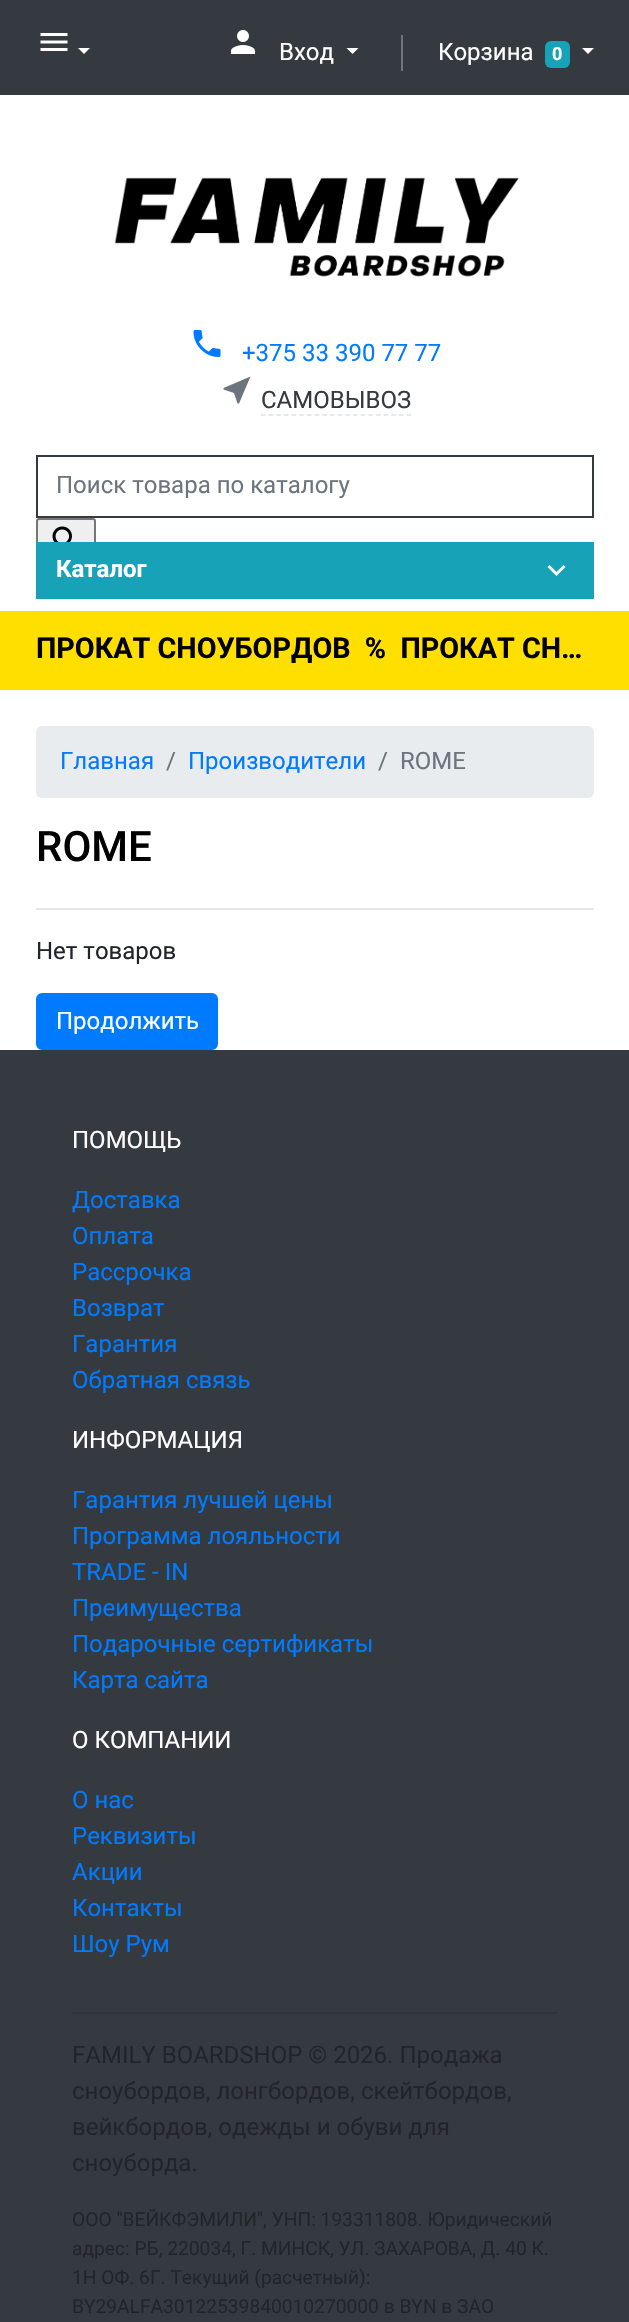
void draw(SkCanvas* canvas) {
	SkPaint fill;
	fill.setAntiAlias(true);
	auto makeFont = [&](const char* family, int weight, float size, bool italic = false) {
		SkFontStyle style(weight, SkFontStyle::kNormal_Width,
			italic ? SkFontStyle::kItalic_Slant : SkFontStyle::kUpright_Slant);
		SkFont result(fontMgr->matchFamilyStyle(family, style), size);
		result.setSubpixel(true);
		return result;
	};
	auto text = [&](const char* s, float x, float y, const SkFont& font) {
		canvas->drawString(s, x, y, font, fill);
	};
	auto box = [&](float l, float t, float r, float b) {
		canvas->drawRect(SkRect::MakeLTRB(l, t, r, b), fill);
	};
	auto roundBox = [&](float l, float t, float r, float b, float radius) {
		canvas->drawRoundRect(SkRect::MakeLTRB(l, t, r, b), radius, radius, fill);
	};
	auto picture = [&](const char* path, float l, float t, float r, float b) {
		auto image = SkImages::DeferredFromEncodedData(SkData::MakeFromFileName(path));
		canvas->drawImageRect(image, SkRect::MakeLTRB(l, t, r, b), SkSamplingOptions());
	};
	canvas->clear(0xFFFFFFFF);
	fill.setColor(0xFF343A40);
	box(0, 0, 629, 95);
	canvas->save();
	canvas->clipRect(SkRect::MakeLTRB(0, 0, 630, 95));
	canvas->clipPath(SkPathBuilder(SkPathFillType::kEvenOdd).moveTo(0, 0).lineTo(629, 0).lineTo(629, 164).lineTo(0, 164).close().moveTo(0, 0).lineTo(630, 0).lineTo(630, 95).lineTo(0, 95).close().detach(), true);
	fill.setColor(0xB3000000);
	fill.setMaskFilter(SkMaskFilter::MakeBlur(kNormal_SkBlurStyle, 22.5f));
	canvas->drawRect(SkRect::MakeLTRB(0, 0, 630, 95), fill);
	fill.setMaskFilter(nullptr);
	canvas->restore();
	picture("image0.png", 40, 33, 68, 51);
	fill.setColor(0xFFFFFFFF);
	canvas->drawPath(SkPathBuilder().moveTo(78, 48).lineTo(90, 48).lineTo(84, 54).close().detach(), fill);
	picture("image1.png", 230, 30, 256, 54);
	canvas->drawPath(SkPathBuilder().moveTo(346.5f, 48).lineTo(358.5f, 48).lineTo(352.5f, 54).close().detach(), fill);
	fill.setColor(0xFF717579);
	box(401, 35, 403, 71);
	fill.setColor(0xFF17A2B8);
	roundBox(545, 41, 570, 68, 6);
	fill.setColor(0xFFFFFFFF);
	canvas->drawPath(SkPathBuilder().moveTo(582, 48).lineTo(594, 48).lineTo(588, 54).close().detach(), fill);
	picture("image2.png", 114, 177, 519, 277);
	picture("image3.png", 193, 330, 221, 357);
	fill.setColor(0xFF6C757D);
	canvas->drawPath(SkPathBuilder().moveTo(250.5f, 376.5f).lineTo(239, 403.5f).lineTo(237.5f, 403.5f).lineTo(234, 393).lineTo(223.5f, 389.5f).lineTo(223.5f, 388).close().detach(), fill);
	fill.setStyle(SkPaint::kStroke_Style);
	fill.setStrokeWidth(1.5f);
	fill.setColor(0xFFDEE2E6);
	fill.setPathEffect(SkDashPathEffect::Make({{4.5f, 3.17f}}, 0));
	canvas->drawPath(SkPathBuilder().moveTo(261, 415).lineTo(411, 415).detach(), fill);
	fill.setPathEffect(nullptr);
	fill.setStrokeWidth(2);
	fill.setColor(0xFF343A40);
	canvas->drawRect(SkRect::MakeLTRB(37, 456, 593, 517), fill);
	fill.setStyle(SkPaint::kFill_Style);
	fill.setColor(0xFFEFEFEF);
	canvas->drawRoundRect(SkRect::MakeLTRB(37, 519, 95, 572), 2, 2, fill);
	fill.setStyle(SkPaint::kStroke_Style);
	fill.setColor(0xFF767676);
	canvas->drawRoundRect(SkRect::MakeLTRB(37, 519, 95, 572), 2, 2, fill);
	picture("image4.png", 52, 526, 72, 542);
	fill.setStyle(SkPaint::kFill_Style);
	fill.setColor(0xFF17A2B8);
	box(36, 542, 594, 599);
	fill.setColor(0xFFFFFFFF);
	canvas->drawPath(SkPathBuilder().moveTo(549.5f, 565).lineTo(556.5f, 572).lineTo(563.5f, 565).lineTo(565.5f, 567).lineTo(556.5f, 576).lineTo(547.5f, 567).close().detach(), fill);
	fill.setColor(0xFFFFDF00);
	box(0, 611, 629, 690);
	fill.setColor(0xFFE9ECEF);
	roundBox(36, 726, 594, 798, 6);
	fill.setColor(0xFFE6E6E6);
	box(36, 908, 594, 910);
	fill.setColor(0xFF007BFF);
	canvas->drawRoundRect(SkRect::MakeLTRB(37, 994, 217, 1049), 5, 5, fill);
	fill.setStyle(SkPaint::kStroke_Style);
	canvas->drawRoundRect(SkRect::MakeLTRB(37, 994, 217, 1049), 5, 5, fill);
	fill.setStyle(SkPaint::kFill_Style);
	fill.setColor(0xFF343A40);
	box(0, 1050, 629, 2322);
	fill.setColor(0xFF2F343A);
	box(72, 2012, 558, 2014);
	auto font1 = makeFont("Roboto", 400, 24);
	fill.setColor(0xFFFFFFFF);
	text("Вход", 279, 60, font1);
	text("Корзина", 438, 60, font1);
	auto font2 = makeFont("Roboto", 700, 18);
	text("0", 552, 60, font2);
	fill.setColor(0xFF007BFF);
	text("+375 33 390 77 77", 242, 361, font1);
	fill.setColor(0xFF343A40);
	text("САМОВЫВОЗ", 261, 408, font1);
	fill.setColor(0xFF6C757D);
	text("Поиск товара по каталогу", 56, 493, font1);
	auto font3 = makeFont("Roboto", 700, 24);
	fill.setColor(0xFFFFFFFF);
	text("Каталог", 56, 577, font3);
	auto font4 = makeFont("Roboto", 700, 28.75f);
	fill.setColor(0xFF000000);
	text("ПРОКАТ СНОУБОРДОВ  %  ПРОКАТ СН…", 36, 658, font4);
	fill.setColor(0xFF007BFF);
	text("Главная", 60, 769, font1);
	fill.setColor(0xFF6C757D);
	text("/", 166, 769, font1);
	fill.setColor(0xFF007BFF);
	text("Производители", 188, 769, font1);
	fill.setColor(0xFF6C757D);
	text("/", 378, 769, font1);
	text("ROME", 400, 769, font1);
	auto font5 = makeFont("Roboto", 500, 42);
	fill.setColor(0xFF000000);
	text("ROME", 36, 861, font5);
	fill.setColor(0xFF212529);
	text("Нет товаров", 36, 959, font1);
	fill.setColor(0xFFFFFFFF);
	text("Продолжить", 56, 1029, font1);
	text("ПОМОЩЬ", 72, 1148, font1);
	fill.setColor(0xFF007BFF);
	text("Доставка", 72, 1208, font1);
	text("Оплата", 72, 1244, font1);
	text("Рассрочка", 72, 1280, font1);
	text("Возврат", 72, 1316, font1);
	text("Гарантия", 72, 1352, font1);
	text("Обратная связь", 72, 1388, font1);
	fill.setColor(0xFFFFFFFF);
	text("ИНФОРМАЦИЯ", 72, 1448, font1);
	fill.setColor(0xFF007BFF);
	text("Гарантия лучшей цены", 72, 1508, font1);
	text("Программа лояльности", 72, 1544, font1);
	text("TRADE - IN", 72, 1580, font1);
	text("Преимущества", 72, 1616, font1);
	text("Подарочные сертификаты", 72, 1652, font1);
	text("Карта сайта", 72, 1688, font1);
	fill.setColor(0xFFFFFFFF);
	text("О КОМПАНИИ", 72, 1748, font1);
	fill.setColor(0xFF007BFF);
	text("О нас", 72, 1808, font1);
	text("Реквизиты", 72, 1844, font1);
	text("Акции", 72, 1880, font1);
	text("Контакты", 72, 1916, font1);
	text("Шоу Рум", 72, 1952, font1);
	fill.setColor(0xFF212529);
	text("FAMILY BOARDSHOP © 2026. Продажа", 72, 2063, font1);
	text("сноубордов, лонгбордов, скейтбордов,", 72, 2099, font1);
	text("вейкбордов, одежды и обуви для", 72, 2135, font1);
	text("сноуборда.", 72, 2171, font1);
	auto font6 = makeFont("Roboto", 400, 19.2f);
	text("ООО \"ВЕЙКФЭМИЛИ\", УНП: 193311808. Юридический", 72, 2226, font6);
	text("адрес: РБ, 220034, Г. МИНСК, УЛ. ЗАХАРОВА, Д. 40 К.", 72, 2255, font6);
	text("1Н ОФ. 6Г. Текущий (расчетный):", 72, 2284, font6);
	text("BY29ALFA30122539840010270000 в BYN в ЗАО", 72, 2313, font6);
}
